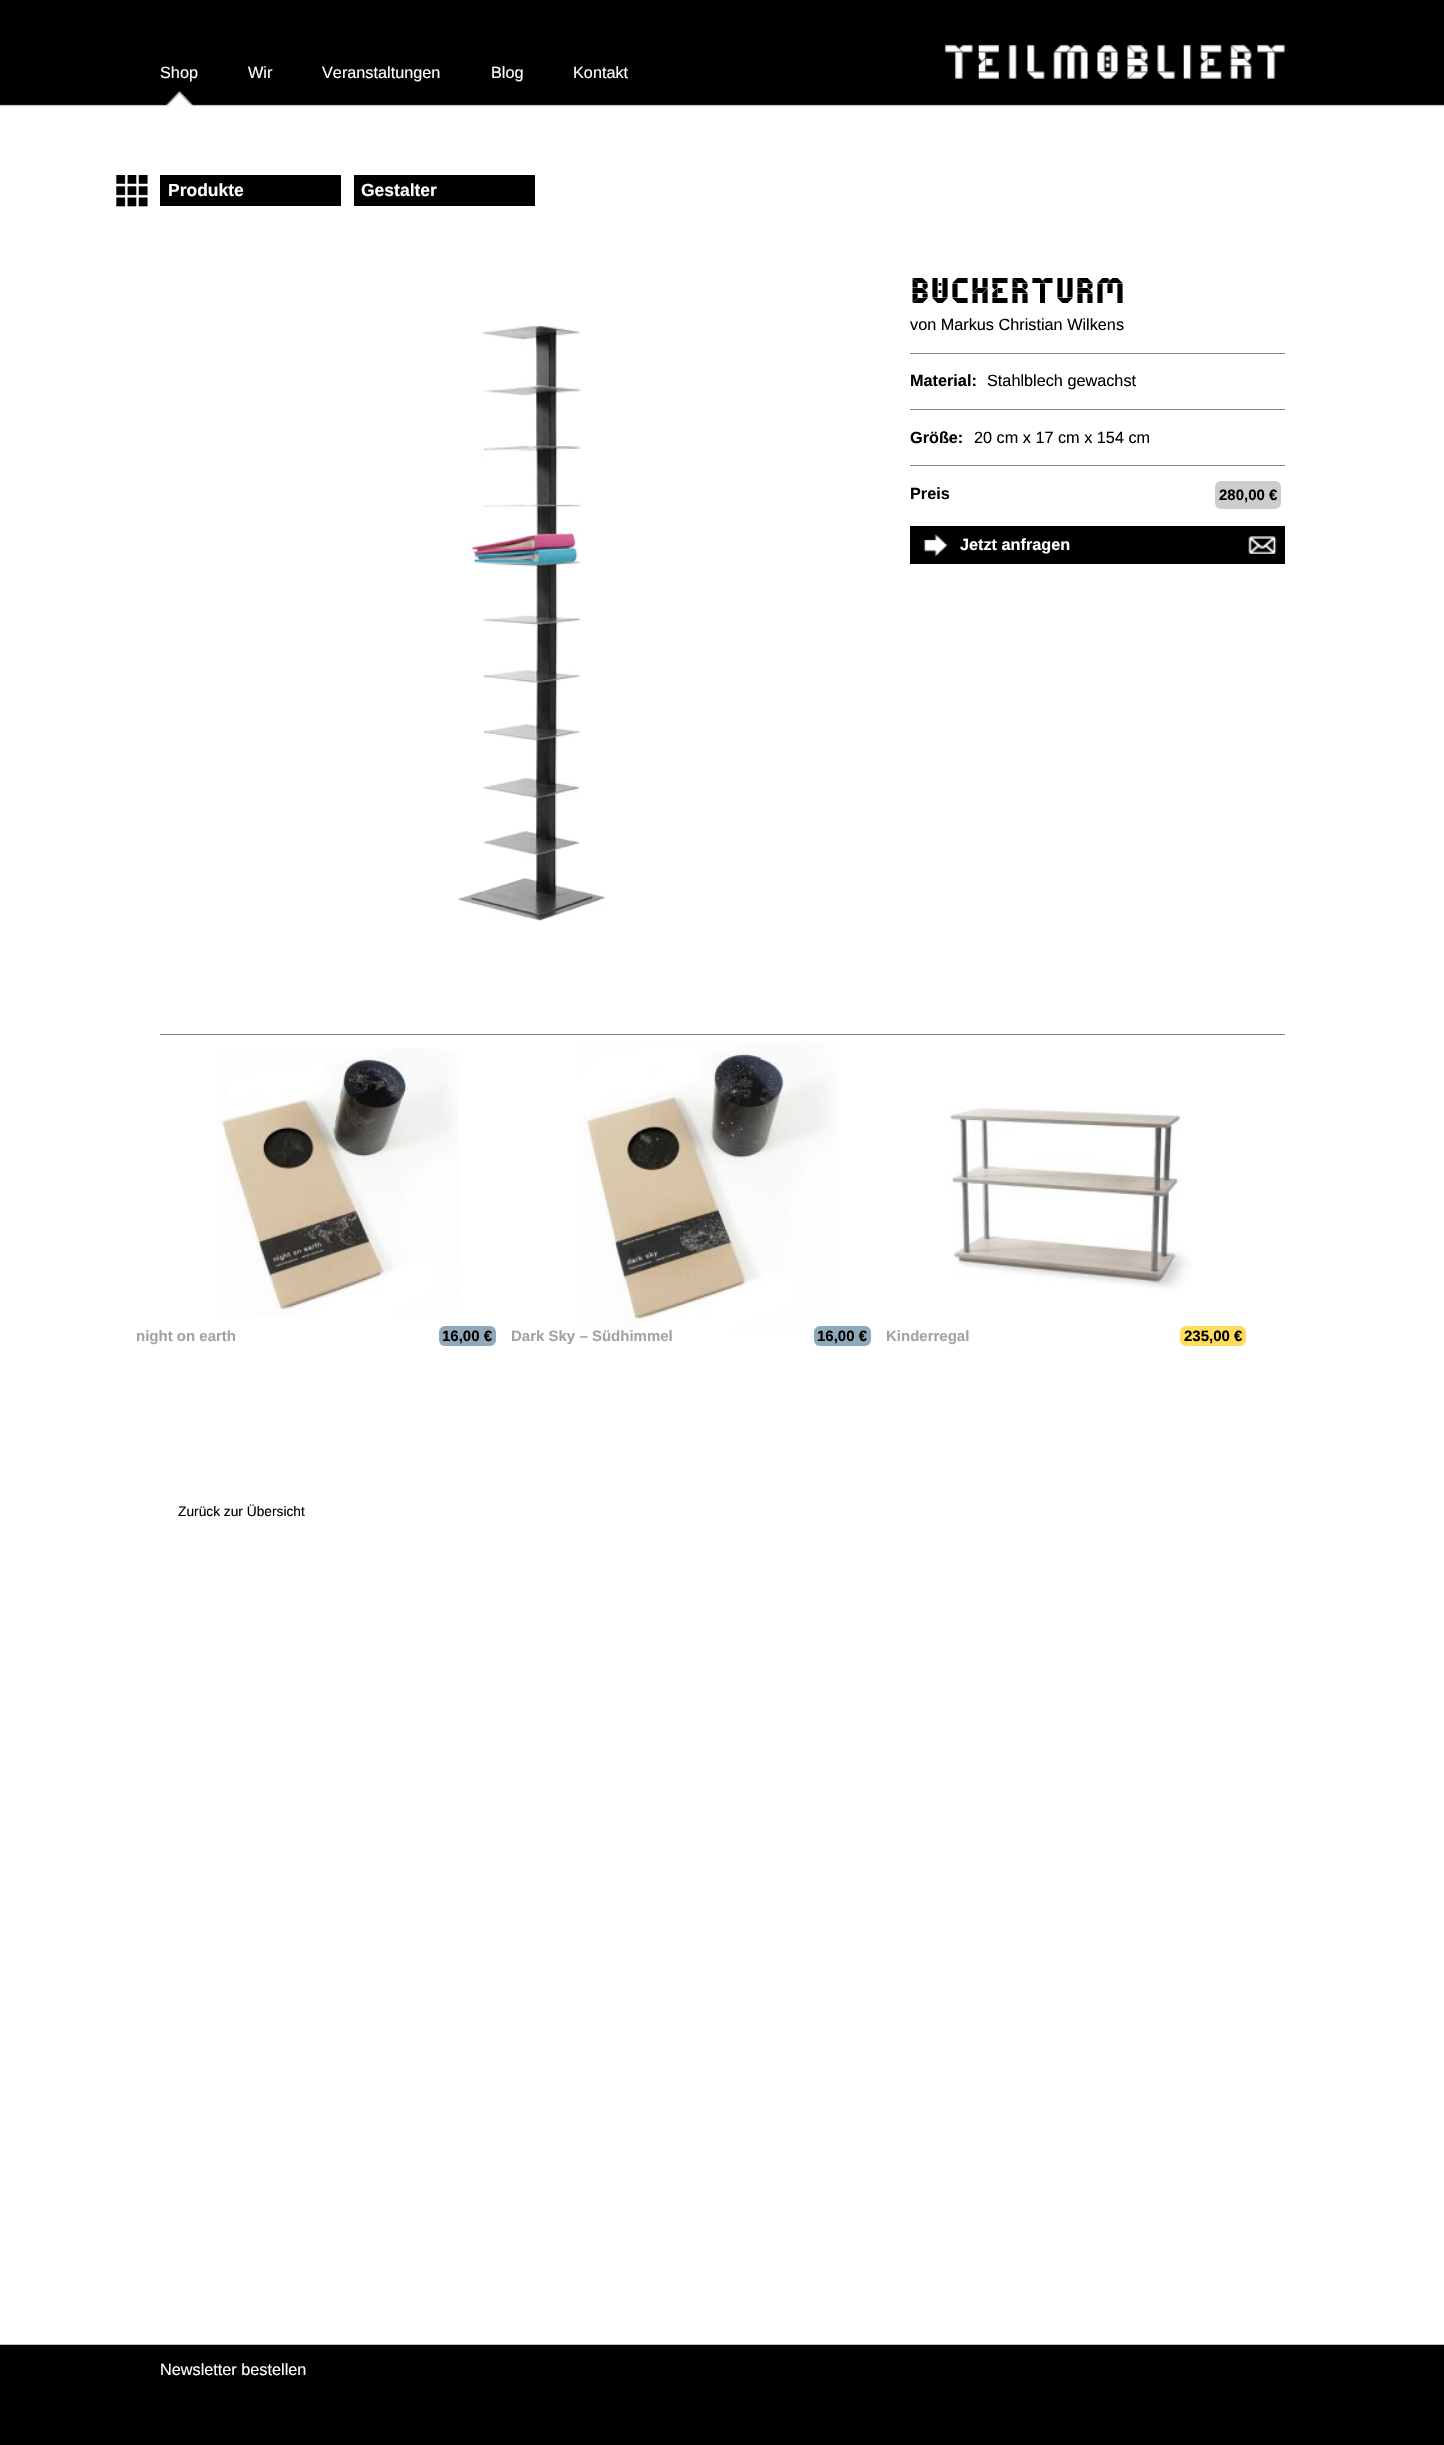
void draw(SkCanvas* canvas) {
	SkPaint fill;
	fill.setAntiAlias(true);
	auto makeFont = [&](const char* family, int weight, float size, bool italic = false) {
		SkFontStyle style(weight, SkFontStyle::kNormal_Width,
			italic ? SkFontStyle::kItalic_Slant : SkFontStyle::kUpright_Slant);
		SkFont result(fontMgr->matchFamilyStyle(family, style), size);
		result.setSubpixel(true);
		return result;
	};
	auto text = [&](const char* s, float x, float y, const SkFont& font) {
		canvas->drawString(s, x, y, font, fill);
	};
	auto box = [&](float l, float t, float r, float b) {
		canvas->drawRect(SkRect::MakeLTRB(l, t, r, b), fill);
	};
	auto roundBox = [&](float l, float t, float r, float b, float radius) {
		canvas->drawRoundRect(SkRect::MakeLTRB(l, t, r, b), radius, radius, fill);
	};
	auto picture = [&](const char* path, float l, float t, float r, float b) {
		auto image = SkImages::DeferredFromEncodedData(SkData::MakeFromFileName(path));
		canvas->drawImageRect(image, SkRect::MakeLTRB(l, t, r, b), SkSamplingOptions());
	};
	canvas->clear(0xFFFFFFFF);
	picture("image0.png", 0, 0, 1444, 107);
	picture("image1.png", 166, 91, 193, 107);
	picture("image2.png", 944, 44, 1285, 79);
	picture("image3.png", 116, 175, 148, 207);
	fill.setColor(0xFF000000);
	box(160, 175, 341, 206);
	box(354, 175, 535, 206);
	fill.setColor(0xFF858585);
	box(160, 1034, 1285, 1035);
	picture("image4.png", 458, 325, 605, 922);
	box(910, 353, 1285, 354);
	box(910, 409, 1285, 410);
	box(910, 465, 1285, 466);
	fill.setColor(0xFFCCCCCC);
	roundBox(1215, 481, 1281, 509, 6);
	fill.setColor(0xFF000000);
	box(910, 526, 1285, 564);
	picture("image5.png", 923, 534, 1277, 557);
	picture("image6.png", 217, 1048, 459, 1315);
	fill.setColor(0xFF90A8B8);
	roundBox(439, 1326, 496, 1346, 6);
	picture("image7.png", 578, 1041, 839, 1334);
	roundBox(814, 1326, 871, 1346, 6);
	picture("image8.png", 944, 1107, 1192, 1289);
	fill.setColor(0xFFFFDC5C);
	roundBox(1180, 1326, 1246, 1346, 6);
	fill.setColor(0xFF000000);
	box(0, 2345, 1444, 2445);
	fill.setColor(0xFFC0C0C0);
	box(0, 2344, 1444, 2345);
	auto font1 = makeFont("Liberation Sans", 400, 16.25f);
	fill.setColor(0xFFFFFFFF);
	text("Shop", 160, 78, font1);
	text("Wir", 248, 78, font1);
	text("Veranstaltungen", 322, 78, font1);
	text("Blog", 491, 78, font1);
	text("Kontakt", 573, 78, font1);
	auto font2 = makeFont("Liberation Sans", 700, 17.5f);
	text("Produkte", 168, 196, font2);
	text("Gestalter", 361, 196, font2);
	auto font3 = makeFont("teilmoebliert", 400, 50);
	fill.setColor(0xFF000000);
	text("Bücherturm", 910, 303, font3);
	text("von Markus Christian Wilkens", 910, 330, font1);
	auto font4 = makeFont("Liberation Sans", 700, 16.25f);
	text("Material:", 910, 386, font4);
	text("Stahlblech gewachst", 987, 386, font1);
	text("Größe:", 910, 443, font4);
	text("20 cm x 17 cm x 154 cm", 974, 443, font1);
	text("Preis", 910, 499, font4);
	auto font5 = makeFont("Liberation Sans", 700, 15);
	text("280,00 €", 1219, 500, font5);
	fill.setColor(0xFFFFFFFF);
	text("Jetzt anfragen", 960, 550, font4);
	fill.setColor(0xFFA3A3A3);
	text("night on earth", 136, 1341, font5);
	fill.setColor(0xFF000000);
	text("16,00 €", 442, 1341, font5);
	fill.setColor(0xFFA3A3A3);
	text("Dark Sky – Südhimmel", 511, 1341, font5);
	fill.setColor(0xFF000000);
	text("16,00 €", 817, 1341, font5);
	fill.setColor(0xFFA3A3A3);
	text("Kinderregal", 886, 1341, font5);
	fill.setColor(0xFF000000);
	text("235,00 €", 1184, 1341, font5);
	auto font6 = makeFont("Liberation Sans", 400, 13.75f);
	text("Zurück zur Übersicht", 178, 1516, font6);
	fill.setColor(0xFFFFFFFF);
	text("Newsletter bestellen", 160, 2375, font1);
}
